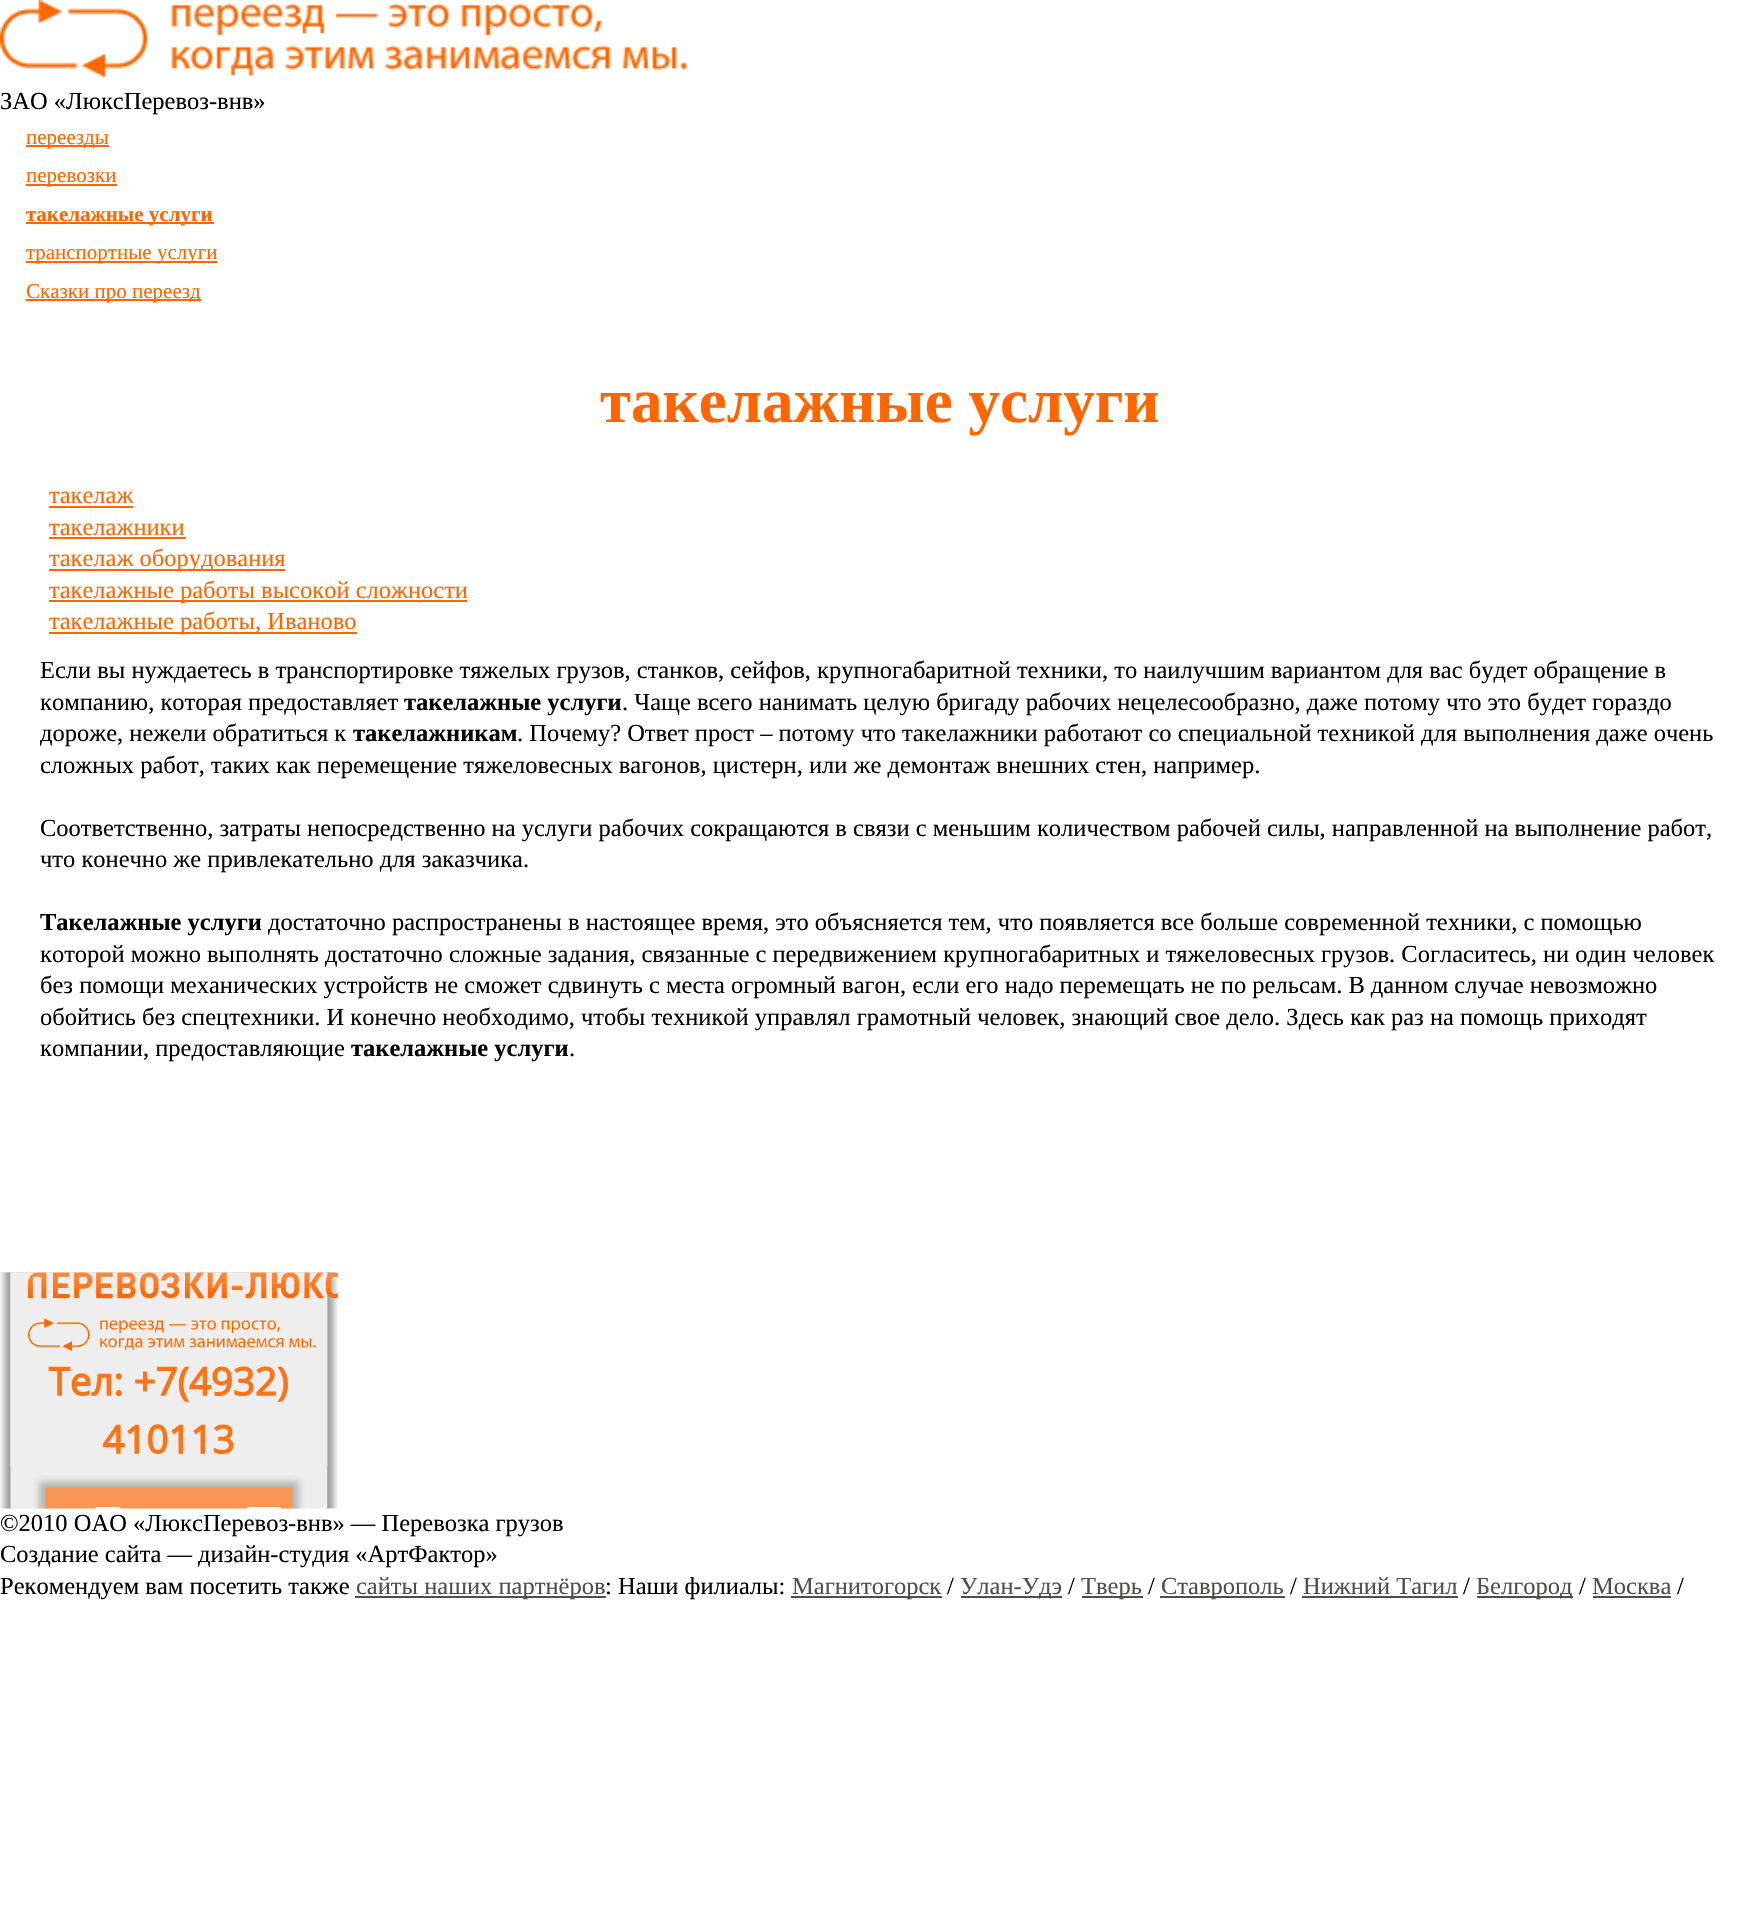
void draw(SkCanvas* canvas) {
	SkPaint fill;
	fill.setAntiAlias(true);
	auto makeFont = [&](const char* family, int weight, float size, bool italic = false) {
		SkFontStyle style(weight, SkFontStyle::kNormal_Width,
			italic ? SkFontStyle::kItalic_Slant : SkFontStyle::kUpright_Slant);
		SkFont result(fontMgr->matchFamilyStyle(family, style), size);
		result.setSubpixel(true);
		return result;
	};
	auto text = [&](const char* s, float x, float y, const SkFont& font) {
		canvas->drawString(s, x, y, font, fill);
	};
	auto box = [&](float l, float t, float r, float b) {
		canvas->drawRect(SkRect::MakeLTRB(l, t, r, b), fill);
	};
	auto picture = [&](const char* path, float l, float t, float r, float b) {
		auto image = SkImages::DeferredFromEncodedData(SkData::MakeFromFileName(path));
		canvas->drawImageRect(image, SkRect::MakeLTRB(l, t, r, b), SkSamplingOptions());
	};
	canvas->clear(0xFFFFFFFF);
	picture("image0.png", 0, 0, 688, 77);
	fill.setColor(0xFFFF6600);
	box(26, 145, 109, 147);
	box(26, 184, 117, 186);
	box(26, 222, 214, 224);
	box(26, 261, 217, 263);
	box(26, 299, 201, 301);
	box(49, 506, 133, 508);
	box(49, 537, 186, 539);
	box(49, 569, 285, 571);
	box(49, 600, 467, 602);
	box(49, 632, 357, 634);
	picture("image1.png", 0, 1272, 338, 1509);
	fill.setColor(0xFF4F4F49);
	box(355, 1596, 606, 1598);
	box(791, 1596, 942, 1598);
	box(961, 1596, 1062, 1598);
	box(1082, 1596, 1143, 1598);
	box(1160, 1596, 1285, 1598);
	box(1302, 1596, 1458, 1598);
	box(1477, 1596, 1573, 1598);
	box(1593, 1596, 1671, 1598);
	auto font1 = makeFont("Liberation Serif", 400, 24.5f);
	fill.setColor(0xFF000000);
	text("ЗАО «ЛюксПеревоз-внв»", 0, 109, font1);
	auto font2 = makeFont("Liberation Serif", 400, 21);
	fill.setColor(0xFFFF6600);
	text("переезды", 26, 144, font2);
	text("перевозки", 26, 182, font2);
	auto font3 = makeFont("Liberation Serif", 700, 21);
	text("такелажные услуги", 26, 221, font3);
	text("транспортные услуги", 26, 259, font2);
	text("Сказки про переезд", 26, 298, font2);
	auto font4 = makeFont("Liberation Serif", 700, 63);
	text("такелажные услуги", 600, 422, font4);
	text("такелаж", 49, 503, font1);
	text("такелажники", 49, 535, font1);
	text("такелаж оборудования", 49, 566, font1);
	text("такелажные работы высокой сложности", 49, 598, font1);
	text("такелажные работы, Иваново", 49, 629, font1);
	fill.setColor(0xFF000000);
	text("Если вы нуждаетесь в транспортировке тяжелых грузов, станков, сейфов, крупногабаритной техники, то наилучшим вариантом для вас будет обращение в", 40, 678, font1);
	text("компанию, которая предоставляет", 40, 710, font1);
	auto font5 = makeFont("Liberation Serif", 700, 24.5f);
	text("такелажные услуги", 404, 710, font5);
	text(". Чаще всего нанимать целую бригаду рабочих нецелесообразно, даже потому что это будет гораздо", 622, 710, font1);
	text("дороже, нежели обратиться к", 40, 741, font1);
	text("такелажникам", 353, 741, font5);
	text(". Почему? Ответ прост – потому что такелажники работают со специальной техникой для выполнения даже очень", 517, 741, font1);
	text("сложных работ, таких как перемещение тяжеловесных вагонов, цистерн, или же демонтаж внешних стен, например.", 40, 773, font1);
	text("Соответственно, затраты непосредственно на услуги рабочих сокращаются в связи с меньшим количеством рабочей силы, направленной на выполнение работ,", 40, 836, font1);
	text("что конечно же привлекательно для заказчика.", 40, 867, font1);
	text("Такелажные услуги", 40, 930, font5);
	text("достаточно распространены в настоящее время, это объясняется тем, что появляется все больше современной техники, с помощью", 268, 930, font1);
	text("которой можно выполнять достаточно сложные задания, связанные с передвижением крупногабаритных и тяжеловесных грузов. Согласитесь, ни один человек", 40, 962, font1);
	text("без помощи механических устройств не сможет сдвинуть с места огромный вагон, если его надо перемещать не по рельсам. В данном случае невозможно", 40, 993, font1);
	text("обойтись без спецтехники. И конечно необходимо, чтобы техникой управлял грамотный человек, знающий свое дело. Здесь как раз на помощь приходят", 40, 1025, font1);
	text("компании, предоставляющие", 40, 1056, font1);
	text("такелажные услуги", 351, 1056, font5);
	text(".", 569, 1056, font1);
	text("©2010 ОАО «ЛюксПеревоз-внв» — Перевозка грузов", 0, 1531, font1);
	text("Создание сайта — дизайн-студия «АртФактор»", 0, 1562, font1);
	text("Рекомендуем вам посетить также", 0, 1594, font1);
	fill.setColor(0xFF4F4F49);
	text("сайты наших партнёров", 356, 1594, font1);
	fill.setColor(0xFF000000);
	text(": Наши филиалы:", 605, 1594, font1);
	fill.setColor(0xFF4F4F49);
	text("Магнитогорск", 792, 1594, font1);
	fill.setColor(0xFF000000);
	text("/", 947, 1594, font1);
	fill.setColor(0xFF4F4F49);
	text("Улан-Удэ", 960, 1594, font1);
	fill.setColor(0xFF000000);
	text("/", 1068, 1594, font1);
	fill.setColor(0xFF4F4F49);
	text("Тверь", 1081, 1594, font1);
	fill.setColor(0xFF000000);
	text("/", 1148, 1594, font1);
	fill.setColor(0xFF4F4F49);
	text("Ставрополь", 1161, 1594, font1);
	fill.setColor(0xFF000000);
	text("/", 1290, 1594, font1);
	fill.setColor(0xFF4F4F49);
	text("Нижний Тагил", 1303, 1594, font1);
	fill.setColor(0xFF000000);
	text("/", 1463, 1594, font1);
	fill.setColor(0xFF4F4F49);
	text("Белгород", 1476, 1594, font1);
	fill.setColor(0xFF000000);
	text("/", 1579, 1594, font1);
	fill.setColor(0xFF4F4F49);
	text("Москва", 1592, 1594, font1);
	fill.setColor(0xFF000000);
	text("/", 1677, 1594, font1);
}
